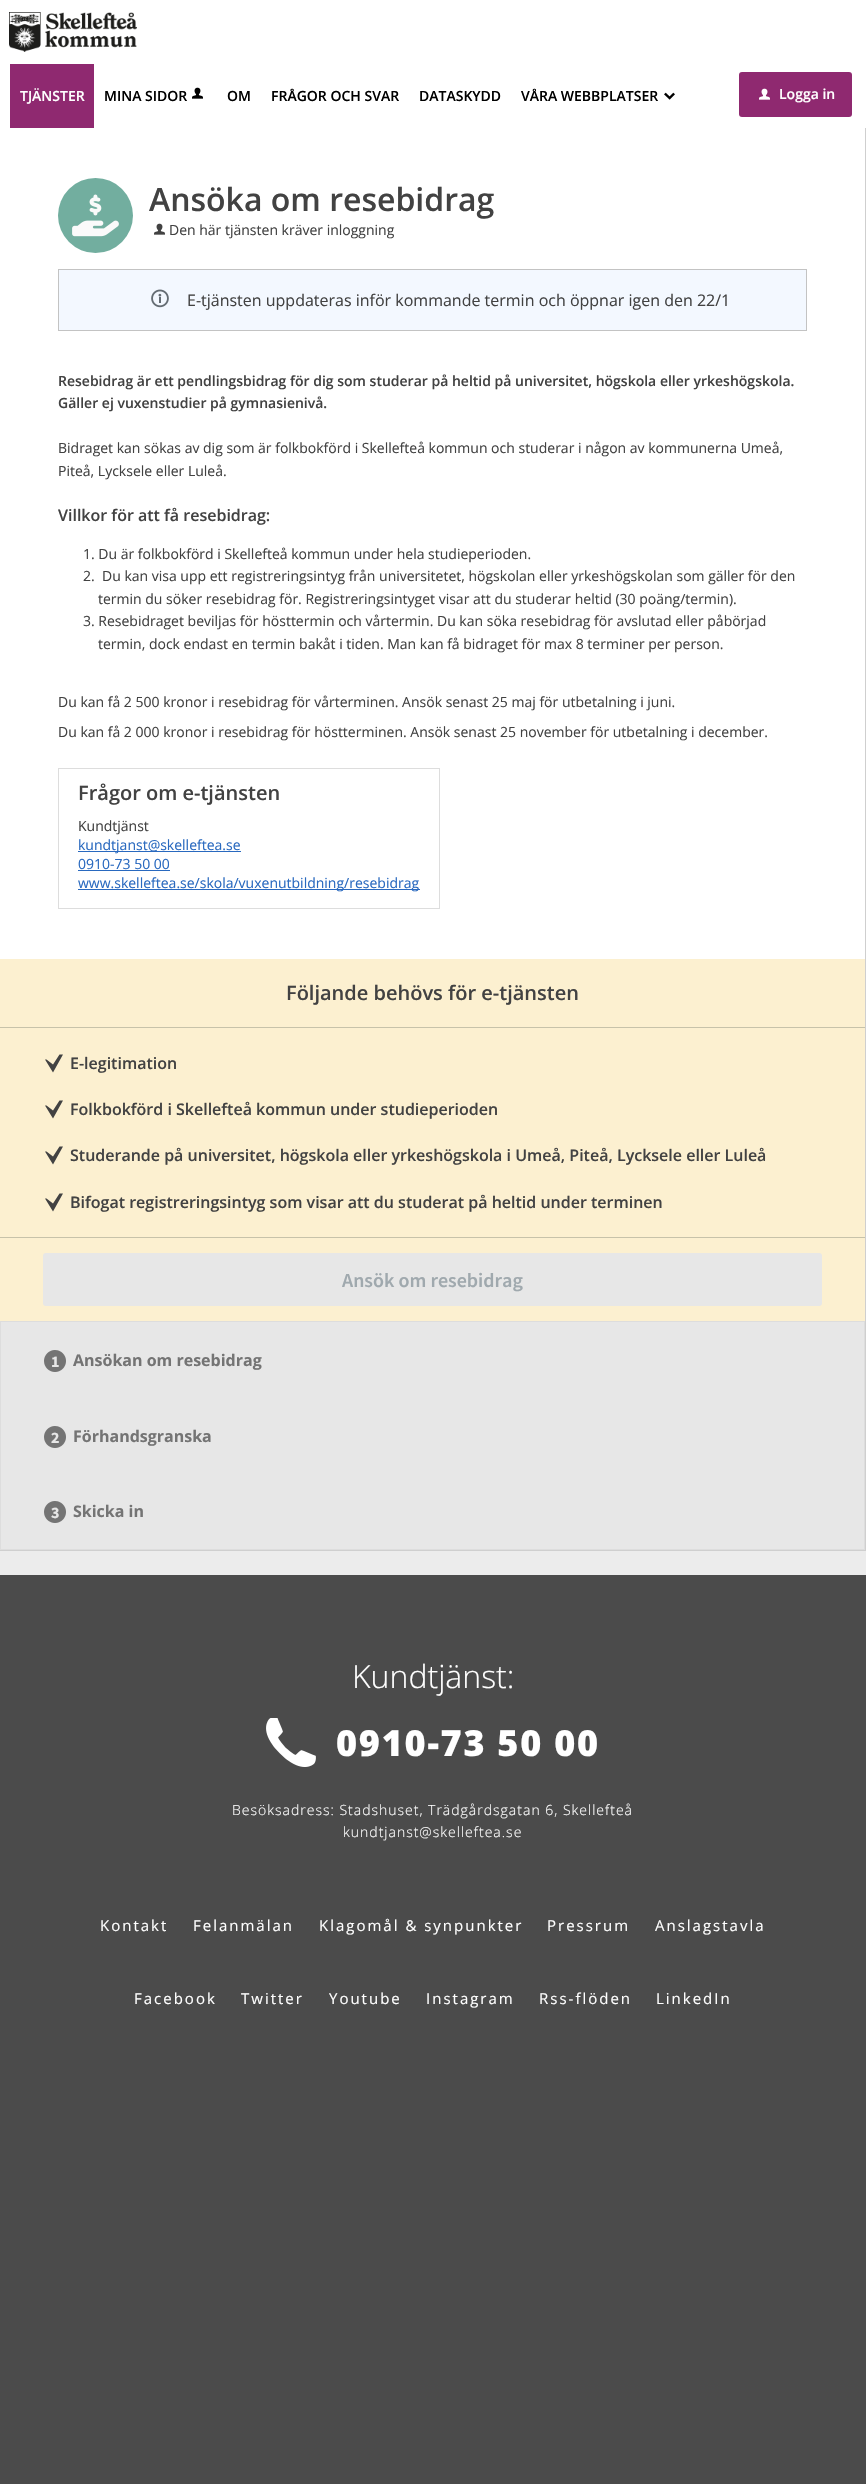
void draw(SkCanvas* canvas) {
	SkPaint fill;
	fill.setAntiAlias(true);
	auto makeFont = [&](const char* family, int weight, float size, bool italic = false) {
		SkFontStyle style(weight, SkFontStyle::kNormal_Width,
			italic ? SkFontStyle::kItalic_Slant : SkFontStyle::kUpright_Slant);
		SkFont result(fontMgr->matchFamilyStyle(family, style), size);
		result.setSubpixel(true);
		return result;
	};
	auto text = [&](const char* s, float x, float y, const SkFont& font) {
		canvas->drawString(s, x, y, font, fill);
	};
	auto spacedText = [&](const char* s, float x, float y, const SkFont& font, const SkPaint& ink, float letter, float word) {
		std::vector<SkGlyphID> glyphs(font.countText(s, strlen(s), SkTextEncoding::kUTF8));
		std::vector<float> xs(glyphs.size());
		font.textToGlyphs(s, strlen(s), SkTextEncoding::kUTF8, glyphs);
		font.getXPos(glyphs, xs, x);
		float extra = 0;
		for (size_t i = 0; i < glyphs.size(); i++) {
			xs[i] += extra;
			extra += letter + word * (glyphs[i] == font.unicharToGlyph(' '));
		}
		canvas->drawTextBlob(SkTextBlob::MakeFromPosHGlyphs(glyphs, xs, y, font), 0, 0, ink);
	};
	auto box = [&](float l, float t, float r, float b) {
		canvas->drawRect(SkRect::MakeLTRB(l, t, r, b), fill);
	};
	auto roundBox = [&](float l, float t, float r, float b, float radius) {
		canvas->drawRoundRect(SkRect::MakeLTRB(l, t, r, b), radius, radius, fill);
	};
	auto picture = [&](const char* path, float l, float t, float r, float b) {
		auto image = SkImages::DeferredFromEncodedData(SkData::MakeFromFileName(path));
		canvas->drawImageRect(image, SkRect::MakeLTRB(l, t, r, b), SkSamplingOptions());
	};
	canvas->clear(0xFFECECEC);
	fill.setColor(0xFFFFFFFF);
	box(0, 0, 866, 128);
	picture("image0.png", 9, 12, 137, 52);
	fill.setColor(0xFF8F2970);
	box(10, 64, 94, 128);
	picture("image1.png", 192, 87, 203, 99);
	picture("image2.png", 664, 92, 675, 100);
	roundBox(739, 72, 852, 117, 3);
	picture("image3.png", 759, 88, 770, 100);
	fill.setColor(0xFFFFFFFF);
	box(0, 128, 865, 959);
	fill.setColor(0xFFCFCFCF);
	box(865, 128, 866, 1551);
	box(0, 1550, 866, 1551);
	picture("image4.png", 58, 178, 133, 253);
	picture("image5.png", 154, 223, 165, 235);
	fill.setColor(0xFFF3F8FF);
	canvas->drawRect(SkRect::MakeLTRB(58.5f, 269.5f, 806.5f, 330.5f), fill);
	fill.setStyle(SkPaint::kStroke_Style);
	fill.setStrokeWidth(1);
	fill.setColor(0xFFC3C3C3);
	canvas->drawRect(SkRect::MakeLTRB(58.5f, 269.5f, 806.5f, 330.5f), fill);
	picture("image6.png", 151, 289, 169, 308);
	fill.setColor(0xFFDDDDDD);
	canvas->drawRect(SkRect::MakeLTRB(58.5f, 768.5f, 439.5f, 908.5f), fill);
	fill.setStyle(SkPaint::kFill_Style);
	fill.setColor(0xFF2969BF);
	box(78, 851, 241, 852);
	box(78, 870, 170, 871);
	box(78, 889, 420, 890);
	fill.setColor(0xFFFCF0D0);
	box(0, 959, 865, 1321);
	fill.setColor(0xFFC7C2A9);
	box(0, 1027, 865, 1028);
	fill.setColor(0xFF424242);
	canvas->drawPath(SkPathBuilder().moveTo(45, 1059.5f).lineTo(53, 1072.5f).lineTo(63, 1054.5f).lineTo(59.5f, 1054.5f).lineTo(53, 1064.5f).lineTo(46.5f, 1059.5f).close().detach(), fill);
	canvas->drawPath(SkPathBuilder().moveTo(45, 1105.5f).lineTo(53, 1118.5f).lineTo(63, 1100.5f).lineTo(59.5f, 1100.5f).lineTo(53, 1110.5f).lineTo(46.5f, 1105.5f).close().detach(), fill);
	canvas->drawPath(SkPathBuilder().moveTo(45, 1151.5f).lineTo(53, 1164.5f).lineTo(63, 1146.5f).lineTo(59.5f, 1146.5f).lineTo(53, 1156.5f).lineTo(46.5f, 1151.5f).close().detach(), fill);
	canvas->drawPath(SkPathBuilder().moveTo(45, 1198.5f).lineTo(53, 1211.5f).lineTo(63, 1193.5f).lineTo(59.5f, 1193.5f).lineTo(53, 1203.5f).lineTo(46.5f, 1198.5f).close().detach(), fill);
	fill.setColor(0xFFC7C2A9);
	box(0, 1237, 865, 1238);
	fill.setColor(0xFFE7E7E7);
	roundBox(43, 1253, 822, 1306, 3);
	fill.setColor(0xFFDDDDDD);
	box(864, 1321, 865, 1550);
	box(0, 1321, 1, 1550);
	box(1, 1321, 864, 1322);
	box(1, 1549, 864, 1550);
	fill.setColor(0xFFE7E7E7);
	box(1, 1322, 864, 1549);
	picture("image7.png", 44, 1350, 66, 1372);
	picture("image7.png", 44, 1426, 66, 1448);
	picture("image7.png", 44, 1501, 66, 1523);
	fill.setColor(0xFF4B4B4B);
	canvas->drawPath(SkPathBuilder().moveTo(-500, 1575).lineTo(-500, 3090).lineTo(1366, 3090).lineTo(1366, 1575).lineTo(866, 1575).lineTo(866, 2090).lineTo(0, 2090).lineTo(0, 1575).close().detach(), fill);
	box(0, 1575, 866, 2090);
	picture("image8.png", 266, 1718, 316, 1767);
	auto font1 = makeFont("Open Sans", 600, 14);
	fill.setColor(0xFFFFFFFF);
	text("TJÄNSTER", 20, 101, font1);
	fill.setColor(0xFF000000);
	text("MINA SIDOR", 104, 101, font1);
	text("OM", 227, 101, font1);
	text("FRÅGOR OCH SVAR", 271, 101, font1);
	text("DATASKYDD", 419, 101, font1);
	text("VÅRA WEBBPLATSER", 521, 101, font1);
	fill.setColor(0xFFFFFFFF);
	text("Logga in", 779, 99, font1);
	auto font2 = makeFont("Open Sans", 600, 32);
	fill.setColor(0xFF424242);
	text("Ansöka om resebidrag", 149, 211, font2);
	auto font3 = makeFont("Open Sans", 400, 14);
	text("Den här tjänsten kräver inloggning", 169, 235, font3);
	auto font4 = makeFont("Open Sans", 400, 16);
	text("E-tjänsten uppdateras inför kommande termin och öppnar igen den 22/1", 187, 306, font4);
	text("Resebidrag är ett pendlingsbidrag för dig som studerar på heltid på universitet, högskola eller yrkeshögskola.", 58, 386, font1);
	text("Gäller ej vuxenstudier på gymnasienivå.", 58, 408, font1);
	text("Bidraget kan sökas av dig som är folkbokförd i Skellefteå kommun och studerar i någon av kommunerna Umeå,", 58, 453, font3);
	text("Piteå, Lycksele eller Luleå.", 58, 476, font3);
	auto font5 = makeFont("Open Sans", 600, 16);
	text("Villkor för att få resebidrag:", 58, 521, font5);
	text("1. Du är folkbokförd i Skellefteå kommun under hela studieperioden.", 83, 559, font3);
	text("2.", 83, 581, font3);
	text("Du kan visa upp ett registreringsintyg från universitetet, högskolan eller yrkeshögskolan som gäller för den", 102, 581, font3);
	text("termin du söker resebidrag för. Registreringsintyget visar att du studerar heltid (30 poäng/termin).", 98, 604, font3);
	text("3. Resebidraget beviljas för hösttermin och vårtermin. Du kan söka resebidrag för avslutad eller påbörjad", 83, 626, font3);
	text("termin, dock endast en termin bakåt i tiden. Man kan få bidraget för max 8 terminer per person.", 98, 649, font3);
	text("Du kan få 2 500 kronor i resebidrag för vårterminen. Ansök senast 25 maj för utbetalning i juni.", 58, 707, font3);
	text("Du kan få 2 000 kronor i resebidrag för höstterminen. Ansök senast 25 november för utbetalning i december.", 58, 737, font3);
	auto font6 = makeFont("Open Sans", 600, 20);
	text("Frågor om e-tjänsten", 78, 800, font6);
	text("Kundtjänst", 78, 831, font3);
	fill.setColor(0xFF2969BF);
	text("kundtjanst@skelleftea.se", 78, 850, font3);
	text("0910-73 50 00", 78, 869, font3);
	text("www.skelleftea.se/skola/vuxenutbildning/resebidrag", 78, 888, font3);
	fill.setColor(0xFF424242);
	text("Följande behövs för e-tjänsten", 286, 1000, font6);
	text("E-legitimation", 70, 1069, font5);
	text("Folkbokförd i Skellefteå kommun under studieperioden", 70, 1115, font5);
	text("Studerande på universitet, högskola eller yrkeshögskola i Umeå, Piteå, Lycksele eller Luleå", 70, 1161, font5);
	text("Bifogat registreringsintyg som visar att du studerat på heltid under terminen", 70, 1208, font5);
	auto font7 = makeFont("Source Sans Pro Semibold", 600, 20);
	fill.setColor(0xFFA0A9AE);
	text("Ansök om resebidrag", 342, 1287, font7);
	auto font8 = makeFont("Source Sans Pro", 700, 16);
	fill.setColor(0xFFE7E7E7);
	text("1", 51, 1367, font8);
	auto font9 = makeFont("Open Sans", 700, 16);
	fill.setColor(0xFF747474);
	text("Ansökan om resebidrag", 73, 1366, font9);
	fill.setColor(0xFFE7E7E7);
	text("2", 51, 1443, font8);
	fill.setColor(0xFF747474);
	text("Förhandsgranska", 73, 1442, font9);
	fill.setColor(0xFFE7E7E7);
	text("3", 51, 1518, font8);
	fill.setColor(0xFF747474);
	text("Skicka in", 73, 1517, font9);
	auto font10 = makeFont("Open Sans", 300, 32);
	fill.setColor(0xFFFFFFFF);
	text("Kundtjänst:", 352, 1688, font10);
	auto font11 = makeFont("Open Sans", 800, 36);
	spacedText("0910-73 50 00", 336, 1756, font11, fill, 1.75f, 0);
	auto font12 = makeFont("Open Sans", 300, 14);
	spacedText("Besöksadress: Stadshuset, Trädgårdsgatan 6, Skellefteå", 232, 1815, font12, fill, 1, 0);
	spacedText("kundtjanst@skelleftea.se", 343, 1837, font12, fill, 1, 0);
	auto font13 = makeFont("Open Sans", 400, 15);
	spacedText("Kontakt", 100, 1931, font13, fill, 2, 0);
	spacedText("Felanmälan", 193, 1931, font13, fill, 2, 0);
	spacedText("Klagomål & synpunkter", 319, 1931, font13, fill, 2, 0);
	spacedText("Pressrum", 547, 1931, font13, fill, 2, 0);
	spacedText("Anslagstavla", 655, 1931, font13, fill, 2, 0);
	spacedText("Facebook", 134, 2004, font13, fill, 2, 0);
	spacedText("Twitter", 241, 2004, font13, fill, 2, 0);
	spacedText("Youtube", 329, 2004, font13, fill, 2, 0);
	spacedText("Instagram", 426, 2004, font13, fill, 2, 0);
	spacedText("Rss-flöden", 539, 2004, font13, fill, 2, 0);
	spacedText("LinkedIn", 656, 2004, font13, fill, 2, 0);
}
